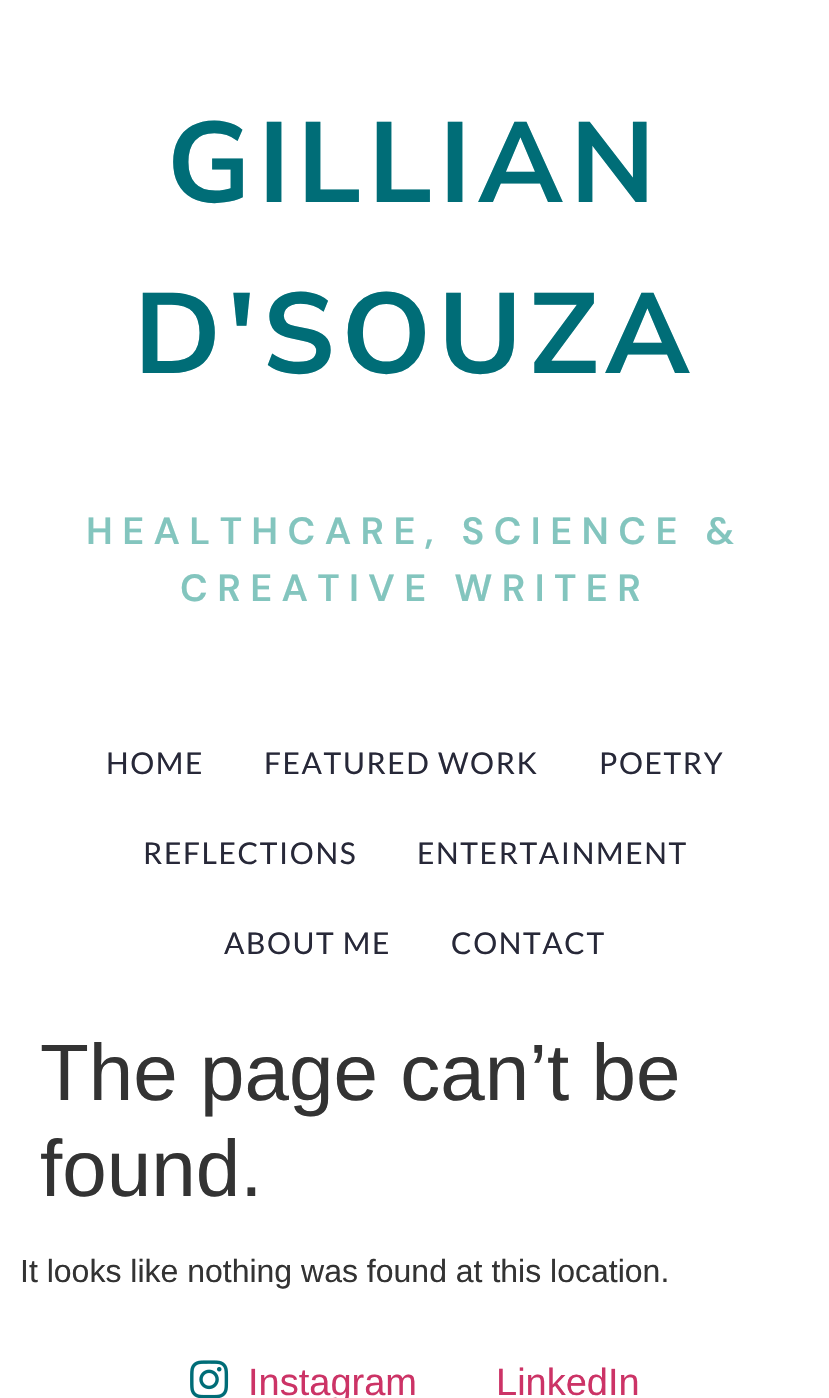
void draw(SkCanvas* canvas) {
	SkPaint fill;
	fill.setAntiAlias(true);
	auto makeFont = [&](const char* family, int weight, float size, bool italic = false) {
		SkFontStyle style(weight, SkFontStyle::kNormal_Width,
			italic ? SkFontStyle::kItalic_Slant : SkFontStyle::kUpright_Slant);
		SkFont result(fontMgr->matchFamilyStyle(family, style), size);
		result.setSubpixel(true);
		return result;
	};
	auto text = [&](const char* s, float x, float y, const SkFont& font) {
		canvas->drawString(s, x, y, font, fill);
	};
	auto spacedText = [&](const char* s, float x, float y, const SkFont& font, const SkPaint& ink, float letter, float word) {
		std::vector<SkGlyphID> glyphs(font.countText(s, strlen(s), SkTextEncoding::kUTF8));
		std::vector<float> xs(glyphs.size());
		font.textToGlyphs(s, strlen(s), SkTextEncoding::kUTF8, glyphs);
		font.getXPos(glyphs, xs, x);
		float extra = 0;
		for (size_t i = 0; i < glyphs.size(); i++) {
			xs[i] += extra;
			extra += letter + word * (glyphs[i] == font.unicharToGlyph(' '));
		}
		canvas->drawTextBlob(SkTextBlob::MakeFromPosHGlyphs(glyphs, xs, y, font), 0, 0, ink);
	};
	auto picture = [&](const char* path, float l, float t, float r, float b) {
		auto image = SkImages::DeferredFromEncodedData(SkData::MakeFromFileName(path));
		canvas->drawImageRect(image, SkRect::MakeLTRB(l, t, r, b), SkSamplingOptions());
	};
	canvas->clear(0xFFFFFFFF);
	picture("image0.png", 190, 1360, 229, 1398);
	auto font1 = makeFont("Nunito Sans", 700, 114);
	fill.setColor(0xFF006D77);
	spacedText("GILLIAN", 167, 202, font1, fill, 7, 0);
	spacedText("D'SOUZA", 134, 373, font1, fill, 7, 0);
	auto font2 = makeFont("DM Sans", 600, 38);
	fill.setColor(0xFF83C5BE);
	spacedText("HEALTHCARE, SCIENCE &", 86, 544, font2, fill, 9.4f, 0);
	spacedText("CREATIVE WRITER", 180, 601, font2, fill, 9.4f, 0);
	auto font3 = makeFont("Lato", 400, 30);
	fill.setColor(0xFF272838);
	spacedText("HOME", 106, 774, font3, fill, 1.6f, 0);
	spacedText("FEATURED WORK", 264, 774, font3, fill, 1.6f, 0);
	spacedText("POETRY", 599, 774, font3, fill, 1.6f, 0);
	spacedText("REFLECTIONS", 143, 864, font3, fill, 1.6f, 0);
	spacedText("ENTERTAINMENT", 417, 864, font3, fill, 1.6f, 0);
	spacedText("ABOUT ME", 224, 954, font3, fill, 1.6f, 0);
	spacedText("CONTACT", 451, 954, font3, fill, 1.6f, 0);
	auto font4 = makeFont("Liberation Sans", 400, 80);
	fill.setColor(0xFF333333);
	text("The page can’t be", 40, 1100, font4);
	text("found.", 40, 1196, font4);
	auto font5 = makeFont("Liberation Sans", 400, 32);
	text("It looks like nothing was found at this location.", 20, 1282, font5);
	auto font6 = makeFont("Liberation Sans", 400, 38);
	fill.setColor(0xFFCC3366);
	text("Instagram", 248, 1395, font6);
	text("LinkedIn", 496, 1395, font6);
}
